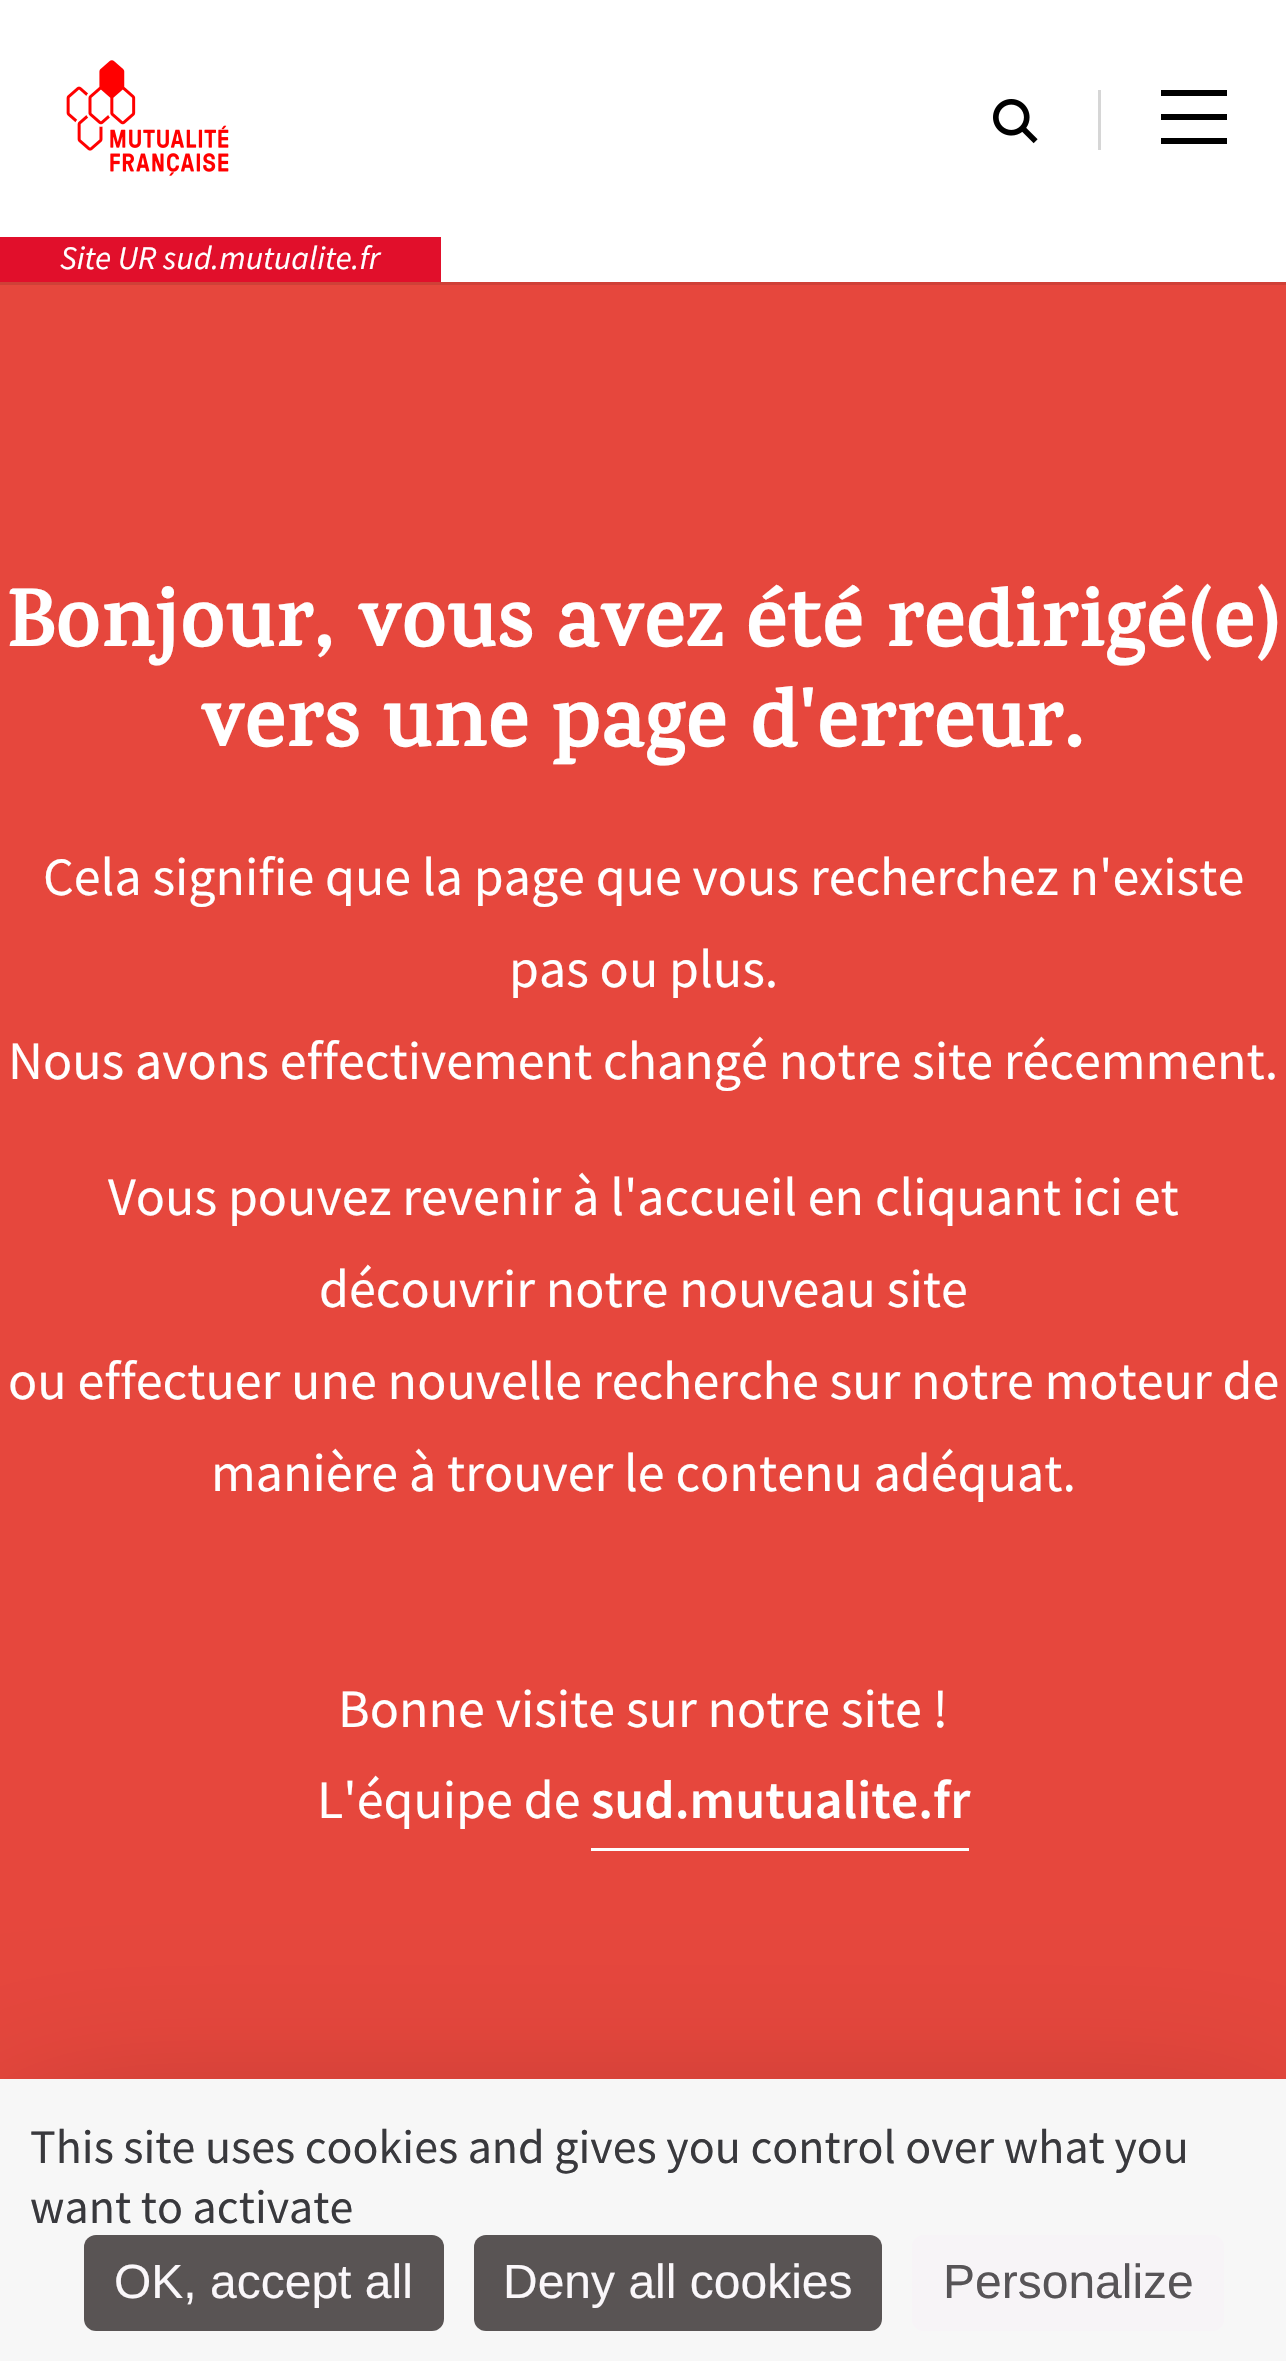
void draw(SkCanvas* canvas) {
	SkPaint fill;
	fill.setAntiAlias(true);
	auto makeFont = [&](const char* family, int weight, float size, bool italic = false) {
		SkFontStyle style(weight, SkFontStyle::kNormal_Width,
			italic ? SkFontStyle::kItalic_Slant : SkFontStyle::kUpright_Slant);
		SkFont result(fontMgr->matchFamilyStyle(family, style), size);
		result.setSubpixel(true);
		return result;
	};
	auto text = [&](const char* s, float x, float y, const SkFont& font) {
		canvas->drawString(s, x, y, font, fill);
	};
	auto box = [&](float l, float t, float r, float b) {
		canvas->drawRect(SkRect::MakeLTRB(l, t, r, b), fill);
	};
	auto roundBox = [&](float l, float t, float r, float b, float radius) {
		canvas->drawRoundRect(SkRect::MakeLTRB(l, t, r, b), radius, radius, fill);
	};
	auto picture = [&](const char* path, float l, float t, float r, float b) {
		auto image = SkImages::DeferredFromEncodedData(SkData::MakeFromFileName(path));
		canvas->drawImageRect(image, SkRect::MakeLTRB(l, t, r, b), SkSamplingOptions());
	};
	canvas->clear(0xFFFFFFFF);
	fill.setColor(0xFFCF4037);
	box(0, 282, 1286, 285);
	picture("image0.png", 66, 60, 229, 176);
	picture("image1.png", 993, 99, 1038, 144);
	fill.setColor(0xFFD6D6D6);
	box(1098, 90, 1101, 150);
	fill.setColor(0xFF000000);
	box(1161, 90, 1227, 96);
	box(1161, 114, 1227, 120);
	box(1161, 138, 1227, 144);
	fill.setColor(0xFFE10F2B);
	box(0, 237, 441, 282);
	fill.setColor(0xFFE6473D);
	box(0, 285, 1286, 2079);
	fill.setColor(0xFFFFFFFF);
	box(591, 1848, 969, 1851);
	fill.setColor(0x40000000);
	fill.setMaskFilter(SkMaskFilter::MakeBlur(kNormal_SkBlurStyle, 90));
	canvas->drawRect(SkRect::MakeLTRB(0, 2139, 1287, 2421), fill);
	fill.setMaskFilter(nullptr);
	fill.setColor(0xFFF7F7F7);
	box(0, 2079, 1286, 2361);
	fill.setColor(0xFF595454);
	roundBox(84, 2235, 444, 2331, 12);
	roundBox(474, 2235, 882, 2331, 12);
	fill.setColor(0xFFF7F4F7);
	roundBox(912, 2235, 1224, 2331, 12);
	auto font1 = makeFont("Source Sans Pro", 400, 33, true);
	fill.setColor(0xFFFFFFFF);
	text("Site UR sud.mutualite.fr", 60, 269, font1);
	auto font2 = makeFont("Karma", 700, 84);
	text("Bonjour, vous avez été redirigé(e)", 6, 646, font2);
	text("vers une page d'erreur.", 201, 746, font2);
	auto font3 = makeFont("Source Sans Pro", 400, 54);
	text("Cela signifie que la page que vous recherchez n'existe", 43, 895, font3);
	text("pas ou plus.", 509, 987, font3);
	text("Nous avons effectivement changé notre site récemment.", 8, 1079, font3);
	text("Vous pouvez revenir à l'accueil en cliquant ici et", 108, 1215, font3);
	text("découvrir notre nouveau site", 319, 1307, font3);
	text("ou effectuer une nouvelle recherche sur notre moteur de", 8, 1399, font3);
	text("manière à trouver le contenu adéquat.", 211, 1491, font3);
	text("Bonne visite sur notre site !", 338, 1727, font3);
	text("L'équipe de", 317, 1818, font3);
	auto font4 = makeFont("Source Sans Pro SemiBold", 600, 54);
	text("sud.mutualite.fr", 591, 1818, font4);
	auto font5 = makeFont("Source Sans Pro", 400, 48);
	fill.setColor(0xFF39393D);
	text("This site uses cookies and gives you control over what you", 30, 2163, font5);
	text("want to activate", 30, 2223, font5);
	auto font6 = makeFont("Liberation Sans", 400, 48);
	fill.setColor(0xFFFAF7FA);
	text("OK, accept all", 114, 2298, font6);
	text("Deny all cookies", 503, 2298, font6);
	fill.setColor(0xFF575457);
	text("Personalize", 943, 2298, font6);
}
